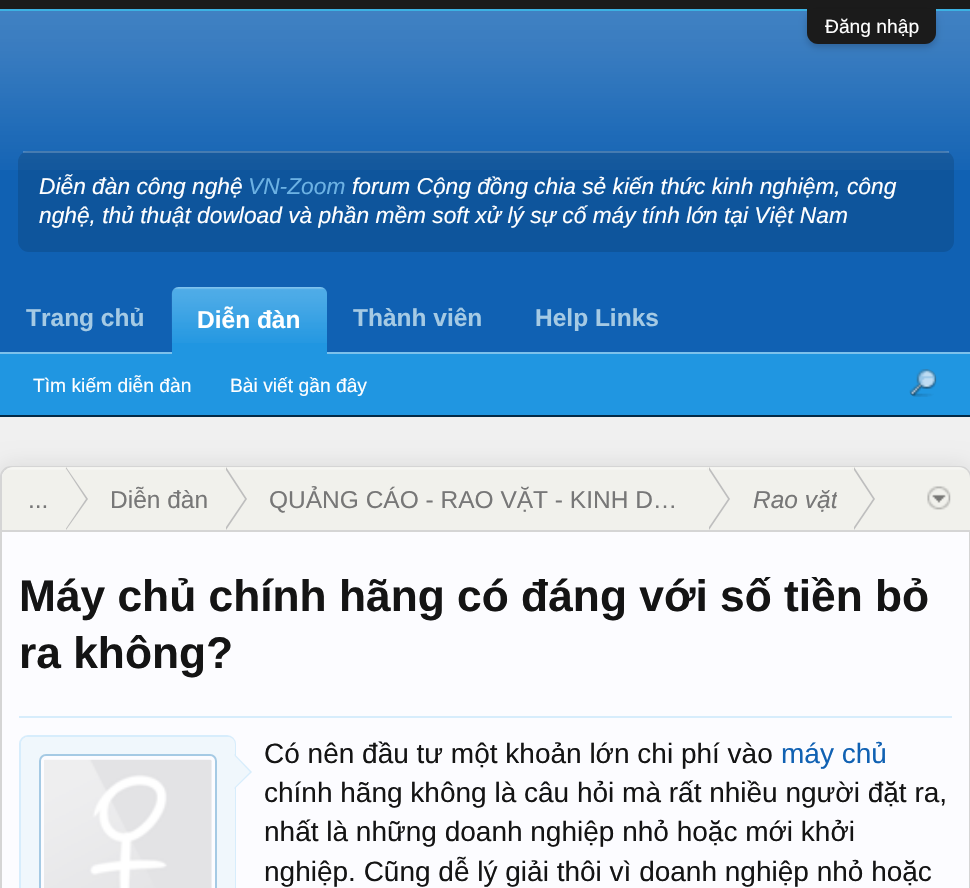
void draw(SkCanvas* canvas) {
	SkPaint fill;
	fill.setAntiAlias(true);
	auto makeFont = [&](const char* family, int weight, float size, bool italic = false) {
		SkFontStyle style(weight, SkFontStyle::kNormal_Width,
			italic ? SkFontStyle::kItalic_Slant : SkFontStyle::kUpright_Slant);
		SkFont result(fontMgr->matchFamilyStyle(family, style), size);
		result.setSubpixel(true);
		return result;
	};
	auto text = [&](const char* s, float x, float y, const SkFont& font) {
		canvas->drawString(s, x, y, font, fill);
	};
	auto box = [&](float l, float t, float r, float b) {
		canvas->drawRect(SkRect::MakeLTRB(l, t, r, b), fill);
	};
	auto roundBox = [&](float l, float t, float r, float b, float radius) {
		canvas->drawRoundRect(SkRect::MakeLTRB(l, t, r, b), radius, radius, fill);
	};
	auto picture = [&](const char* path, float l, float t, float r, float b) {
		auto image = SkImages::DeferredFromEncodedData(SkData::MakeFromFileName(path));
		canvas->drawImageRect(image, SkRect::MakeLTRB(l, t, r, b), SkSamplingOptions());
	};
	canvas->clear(0xFFF0F0F0);
	fill.setColor(0xFF1B1B1B);
	box(0, 0, 970, 9);
	fill.setColor(0xFF3CB2E3);
	box(0, 9, 970, 11);
	fill.setColor(0xFF1061B3);
	box(0, 11, 970, 352);
	picture("image0.png", 0, 11, 970, 170);
	fill.setColor(0x33000000);
	fill.setMaskFilter(SkMaskFilter::MakeBlur(kNormal_SkBlurStyle, 3.5f));
	canvas->drawRoundRect(SkRect::MakeLTRB(807, 12, 936, 47), 11, 11, fill);
	fill.setMaskFilter(nullptr);
	fill.setColor(0xFF1B1B1B);
	canvas->drawPath(SkPathBuilder().moveTo(807, 9).lineTo(936, 9).lineTo(936, 33).cubicTo(936, 39, 931, 44, 925, 44).lineTo(818, 44).cubicTo(812, 44, 807, 39, 807, 33).close().detach(), fill);
	fill.setColor(0x21000000);
	roundBox(18, 151, 954, 252, 11);
	fill.setColor(0x33FFFFFF);
	box(23, 151, 949, 153);
	fill.setColor(0xFF7CC1EC);
	box(0, 352, 970, 354);
	fill.setColor(0xFF2096E1);
	canvas->drawPath(SkPathBuilder().moveTo(179, 287).lineTo(320, 287).cubicTo(324, 287, 327, 290, 327, 294).lineTo(327, 354).lineTo(172, 354).lineTo(172, 294).cubicTo(172, 290, 175, 287, 179, 287).close().detach(), fill);
	picture("image1.png", 171, 287, 327, 343);
	box(0, 354, 970, 415);
	fill.setColor(0xFF032A46);
	box(0, 415, 970, 417);
	picture("image2.png", 909, 369, 937, 397);
	fill.setColor(0x1A000000);
	fill.setMaskFilter(SkMaskFilter::MakeBlur(kNormal_SkBlurStyle, 10.5f));
	canvas->drawRoundRect(SkRect::MakeLTRB(0, 466, 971, 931), 11, 11, fill);
	fill.setMaskFilter(nullptr);
	fill.setColor(0xFFFCFCFF);
	canvas->drawRoundRect(SkRect::MakeLTRB(1, 467, 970, 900), 10, 10, fill);
	fill.setStyle(SkPaint::kStroke_Style);
	fill.setStrokeWidth(2);
	fill.setColor(0xFFD5D5D5);
	canvas->drawRoundRect(SkRect::MakeLTRB(1, 467, 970, 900), 10, 10, fill);
	fill.setStyle(SkPaint::kFill_Style);
	fill.setColor(0xFFF1F1EC);
	canvas->drawPath(SkPathBuilder().moveTo(13, 467).lineTo(959, 467).cubicTo(965, 467, 970, 472, 970, 478).lineTo(970, 532).lineTo(2, 532).lineTo(2, 478).cubicTo(2, 472, 7, 467, 13, 467).close().detach(), fill);
	picture("image3.png", 7, 467, 965, 470);
	fill.setColor(0xFFD5D5D5);
	box(2, 530, 970, 532);
	fill.setColor(0xFFBEBEBE);
	canvas->drawPath(SkPathBuilder().moveTo(66, 530).lineTo(66, 467).lineTo(88, 499).close().detach(), fill);
	fill.setColor(0xFFF1F1EC);
	canvas->drawPath(SkPathBuilder().moveTo(65, 530).lineTo(65, 467).lineTo(86, 499).close().detach(), fill);
	fill.setColor(0xFFBEBEBE);
	canvas->drawPath(SkPathBuilder().moveTo(226, 530).lineTo(226, 467).lineTo(247, 499).close().detach(), fill);
	fill.setColor(0xFFF1F1EC);
	canvas->drawPath(SkPathBuilder().moveTo(224, 530).lineTo(224, 467).lineTo(245, 499).close().detach(), fill);
	fill.setColor(0xFFBEBEBE);
	canvas->drawPath(SkPathBuilder().moveTo(709, 530).lineTo(709, 467).lineTo(730, 499).close().detach(), fill);
	fill.setColor(0xFFF1F1EC);
	canvas->drawPath(SkPathBuilder().moveTo(707, 530).lineTo(707, 467).lineTo(728, 499).close().detach(), fill);
	fill.setColor(0xFFBEBEBE);
	canvas->drawPath(SkPathBuilder().moveTo(854, 530).lineTo(854, 467).lineTo(875, 499).close().detach(), fill);
	fill.setColor(0xFFF1F1EC);
	canvas->drawPath(SkPathBuilder().moveTo(852, 530).lineTo(852, 467).lineTo(873, 499).close().detach(), fill);
	picture("image4.png", 927, 486, 951, 510);
	fill.setColor(0xFFD7EDFC);
	box(19, 716, 952, 718);
	fill.setStyle(SkPaint::kStroke_Style);
	canvas->drawRoundRect(SkRect::MakeLTRB(20, 736, 235, 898), 8, 8, fill);
	fill.setStyle(SkPaint::kFill_Style);
	fill.setColor(0xFFF0F7FC);
	roundBox(21, 737, 235, 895, 7);
	fill.setColor(0xFFFCFCFF);
	canvas->drawRoundRect(SkRect::MakeLTRB(40, 755, 216, 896), 6, 6, fill);
	fill.setStyle(SkPaint::kStroke_Style);
	fill.setColor(0xFFA5CAE4);
	canvas->drawRoundRect(SkRect::MakeLTRB(40, 755, 216, 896), 6, 6, fill);
	picture("image5.png", 44, 759, 212, 888);
	fill.setStyle(SkPaint::kFill_Style);
	fill.setColor(0xFFD7EDFC);
	canvas->drawPath(SkPathBuilder().moveTo(234.5f, 789).lineTo(234.5f, 754).lineTo(252, 772).close().detach(), fill);
	fill.setColor(0xFFF0F7FC);
	canvas->drawPath(SkPathBuilder().moveTo(233, 789).lineTo(233, 754).lineTo(250, 772).close().detach(), fill);
	auto font1 = makeFont("Liberation Sans", 400, 19.25f);
	fill.setColor(0xFFFFFFFF);
	text("Đăng nhập", 825, 33, font1);
	auto font2 = makeFont("Liberation Sans", 400, 22.75f, true);
	text("Diễn đàn công nghệ", 39, 194, font2);
	fill.setColor(0xFF6CB2E4);
	text("VN-Zoom", 248, 194, font2);
	fill.setColor(0xFFFFFFFF);
	text("forum Cộng đồng chia sẻ kiến thức kinh nghiệm, công", 352, 194, font2);
	text("nghệ, thủ thuật dowload và phần mềm soft xử lý sự cố máy tính lớn tại Việt Nam", 39, 223, font2);
	auto font3 = makeFont("Liberation Sans", 700, 24.5f);
	text("Diễn đàn", 197, 328, font3);
	text("Tìm kiếm diễn đàn", 33, 392, font1);
	text("Bài viết gần đây", 230, 392, font1);
	fill.setColor(0xFFA5CAE4);
	text("Trang chủ", 26, 326, font3);
	text("Thành viên", 353, 326, font3);
	text("Help Links", 535, 326, font3);
	auto font4 = makeFont("Liberation Sans", 400, 24.5f);
	fill.setColor(0xFF777777);
	text("...", 28, 508, font4);
	text("Diễn đàn", 110, 508, font4);
	text("QUẢNG CÁO - RAO VẶT - KINH D…", 269, 508, font4);
	canvas->save();
	canvas->clipRect(SkRect::MakeLTRB(753, 467, 837, 530));
	auto font5 = makeFont("Liberation Sans", 400, 24.5f, true);
	text("Rao vặt", 753, 508, font5);
	canvas->restore();
	auto font6 = makeFont("Liberation Sans", 700, 44.3f);
	fill.setColor(0xFF141414);
	text("Máy chủ chính hãng có đáng với số tiền bỏ", 19, 611, font6);
	text("ra không?", 19, 668, font6);
	auto font7 = makeFont("Liberation Sans", 400, 28);
	text("Có nên đầu tư một khoản lớn chi phí vào", 264, 763, font7);
	fill.setColor(0xFF1061B3);
	text("máy chủ", 781, 763, font7);
	fill.setColor(0xFF141414);
	text("chính hãng không là câu hỏi mà rất nhiều người đặt ra,", 264, 802, font7);
	text("nhất là những doanh nghiệp nhỏ hoặc mới khởi", 264, 841, font7);
	text("nghiệp. Cũng dễ lý giải thôi vì doanh nghiệp nhỏ hoặc", 264, 881, font7);
}
